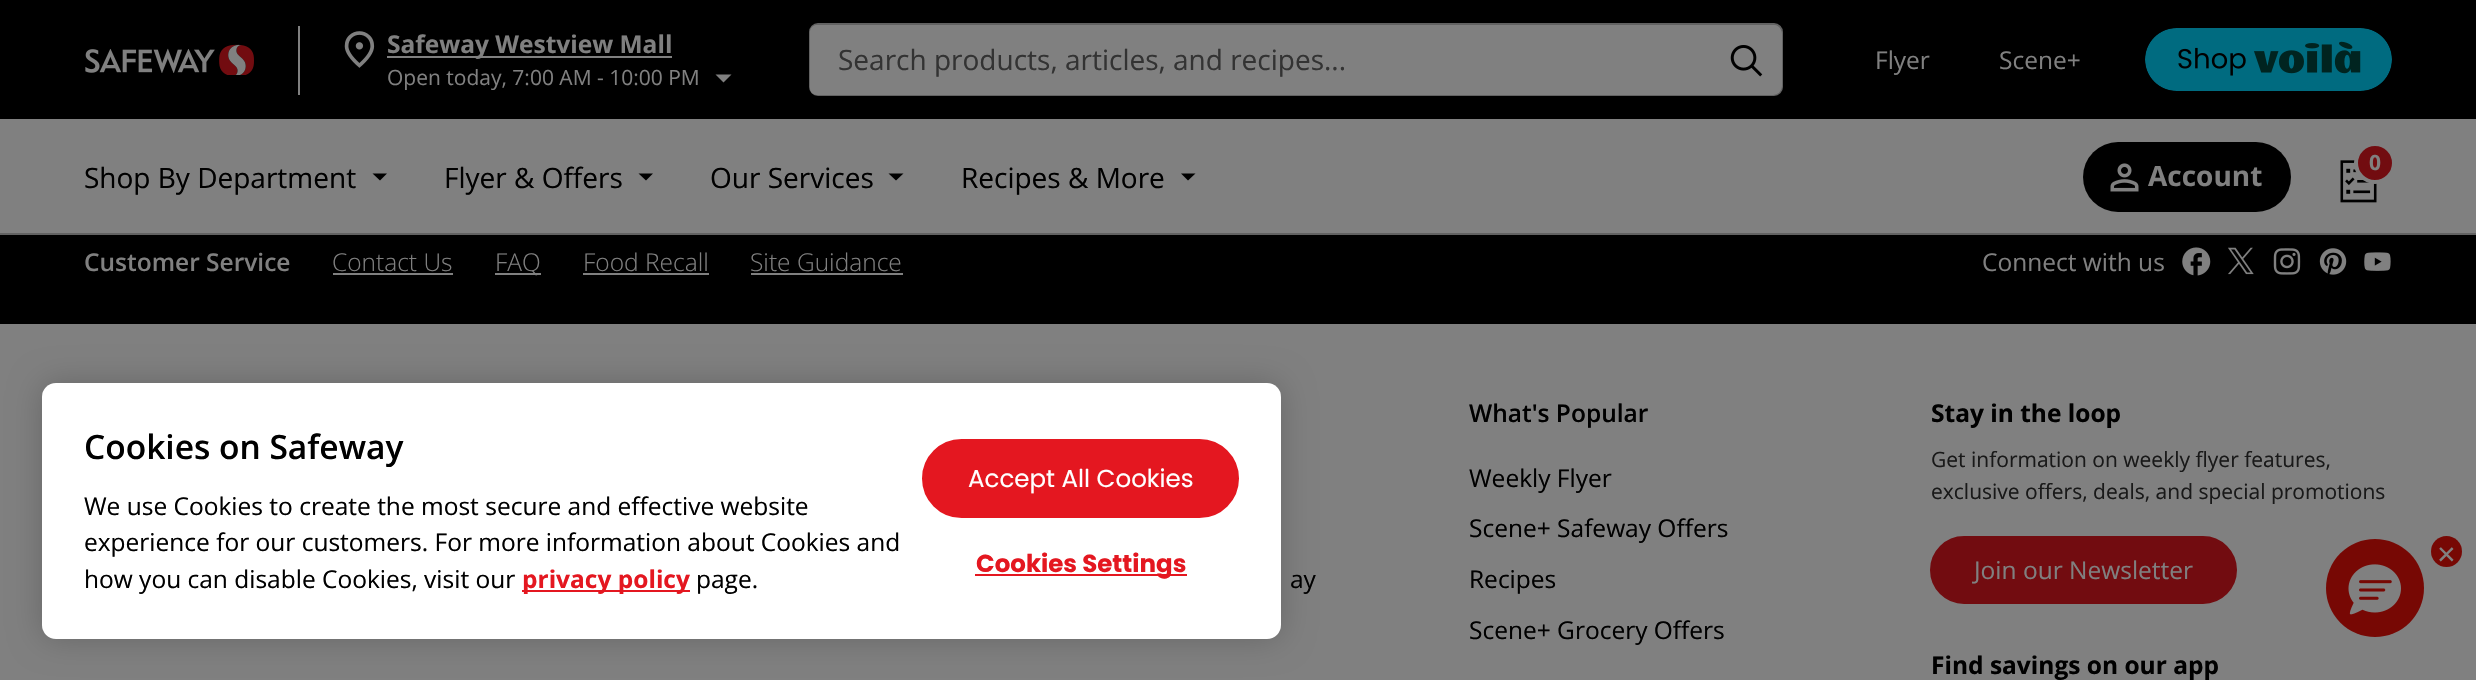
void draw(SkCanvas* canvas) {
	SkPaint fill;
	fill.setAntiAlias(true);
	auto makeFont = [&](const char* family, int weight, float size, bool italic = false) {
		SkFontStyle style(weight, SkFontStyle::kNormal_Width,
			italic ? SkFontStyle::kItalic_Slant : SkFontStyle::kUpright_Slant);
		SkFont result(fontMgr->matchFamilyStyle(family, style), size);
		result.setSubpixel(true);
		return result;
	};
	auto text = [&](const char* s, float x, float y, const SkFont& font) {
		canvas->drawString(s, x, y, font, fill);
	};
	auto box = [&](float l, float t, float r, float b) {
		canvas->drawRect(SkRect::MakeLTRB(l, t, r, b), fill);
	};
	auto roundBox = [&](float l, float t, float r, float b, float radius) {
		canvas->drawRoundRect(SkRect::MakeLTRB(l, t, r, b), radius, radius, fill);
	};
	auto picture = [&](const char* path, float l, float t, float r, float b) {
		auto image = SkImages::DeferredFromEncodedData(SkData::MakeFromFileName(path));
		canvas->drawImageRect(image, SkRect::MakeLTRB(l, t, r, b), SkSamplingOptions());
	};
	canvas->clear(0xFF808080);
	fill.setColor(0xFF000000);
	box(0, 0, 2476, 119);
	picture("image0.png", 85, 44, 254, 75);
	fill.setColor(0xFF808080);
	box(298, 26, 300, 95);
	picture("image1.png", 344, 31, 375, 68);
	box(387, 56, 672, 58);
	canvas->drawPath(SkPathBuilder().moveTo(723.5f, 82.5f).lineTo(715.5f, 74.5f).lineTo(731.5f, 74.5f).close().detach(), fill);
	canvas->drawRoundRect(SkRect::MakeLTRB(810, 24, 1782, 95), 8, 8, fill);
	fill.setStyle(SkPaint::kStroke_Style);
	fill.setStrokeWidth(2);
	fill.setColor(0xFF626262);
	canvas->drawRoundRect(SkRect::MakeLTRB(810, 24, 1782, 95), 8, 8, fill);
	fill.setStyle(SkPaint::kFill_Style);
	fill.setColor(0xFF808080);
	roundBox(810, 25, 1782, 95, 9);
	canvas->drawPath(SkPathBuilder().moveTo(817, 25).lineTo(838, 25).lineTo(838, 95).lineTo(817, 95).cubicTo(813, 95, 810, 92, 810, 88).lineTo(810, 32).cubicTo(810, 28, 813, 25, 817, 25).close().detach(), fill);
	picture("image2.png", 1730, 45, 1763, 77);
	picture("image3.png", 2145, 28, 2392, 91);
	fill.setColor(0xFF626262);
	box(0, 233, 2476, 235);
	fill.setColor(0xFF000000);
	canvas->drawPath(SkPathBuilder().moveTo(380, 180.5f).lineTo(372.5f, 173.5f).lineTo(387, 173.5f).close().detach(), fill);
	canvas->drawPath(SkPathBuilder().moveTo(646, 180.5f).lineTo(638.5f, 173.5f).lineTo(653, 173.5f).close().detach(), fill);
	canvas->drawPath(SkPathBuilder().moveTo(896, 180.5f).lineTo(888.5f, 173.5f).lineTo(903.5f, 173.5f).close().detach(), fill);
	canvas->drawPath(SkPathBuilder().moveTo(1188, 180.5f).lineTo(1181, 173.5f).lineTo(1195.5f, 173.5f).close().detach(), fill);
	picture("image4.png", 2340, 160, 2377, 203);
	fill.setColor(0xFF720C10);
	canvas->drawCircle(2375, 163, 19, fill);
	fill.setStyle(SkPaint::kStroke_Style);
	fill.setStrokeWidth(4);
	fill.setColor(0xFF808080);
	canvas->drawCircle(2375, 163, 19, fill);
	fill.setStyle(SkPaint::kFill_Style);
	fill.setColor(0xFF000000);
	roundBox(2083, 142, 2291, 212, 35);
	picture("image5.png", 2110, 163, 2139, 192);
	box(0, 235, 2476, 324);
	fill.setColor(0xFF808080);
	box(333, 273, 453, 275);
	box(495, 273, 541, 275);
	box(583, 273, 709, 275);
	box(751, 273, 903, 275);
	picture("image6.png", 2182, 247, 2211, 276);
	picture("image7.png", 2228, 247, 2254, 275);
	picture("image8.png", 2273, 248, 2301, 275);
	picture("image9.png", 2319, 248, 2347, 275);
	picture("image10.png", 2364, 252, 2391, 271);
	fill.setColor(0xFF720C10);
	canvas->drawRoundRect(SkRect::MakeLTRB(1931, 537, 2236, 603), 33, 33, fill);
	fill.setStyle(SkPaint::kStroke_Style);
	fill.setStrokeWidth(2);
	canvas->drawRoundRect(SkRect::MakeLTRB(1931, 537, 2236, 603), 33, 33, fill);
	fill.setStyle(SkPaint::kFill_Style);
	fill.setColor(0x33000000);
	fill.setMaskFilter(SkMaskFilter::MakeBlur(kNormal_SkBlurStyle, 16));
	canvas->drawRoundRect(SkRect::MakeLTRB(42, 383, 1281, 639), 14, 14, fill);
	fill.setMaskFilter(nullptr);
	fill.setColor(0xFFFFFFFF);
	roundBox(42, 383, 1281, 639, 14);
	fill.setColor(0xFFE41720);
	box(522, 590, 690, 592);
	canvas->drawRoundRect(SkRect::MakeLTRB(924, 441, 1237, 516), 37.5f, 37.5f, fill);
	fill.setStyle(SkPaint::kStroke_Style);
	fill.setStrokeWidth(4);
	canvas->drawRoundRect(SkRect::MakeLTRB(924, 441, 1237, 516), 37.5f, 37.5f, fill);
	fill.setStyle(SkPaint::kFill_Style);
	box(975, 574, 1187, 576);
	fill.setColor(0xFF770804);
	canvas->drawCircle(2375, 588, 49, fill);
	picture("image11.png", 2348, 564, 2401, 615);
	canvas->drawCircle(2446.5f, 551.5f, 15.5f, fill);
	auto font1 = makeFont("Open Sans", 700, 24.5f);
	fill.setColor(0xFF808080);
	text("Safeway Westview Mall", 387, 53, font1);
	auto font2 = makeFont("Open Sans", 400, 21);
	text("Open today, 7:00 AM - 10:00 PM", 387, 85, font2);
	auto font3 = makeFont("Open Sans", 400, 28);
	fill.setColor(0xFF333333);
	text("Search products, articles, and recipes...", 838, 70, font3);
	auto font4 = makeFont("Open Sans", 400, 24.5f);
	fill.setColor(0xFF808080);
	text("Flyer", 1875, 69, font4);
	text("Scene+", 1999, 69, font4);
	fill.setColor(0xFF000000);
	text("Shop By Department", 84, 188, font3);
	text("Flyer & Offers", 444, 188, font3);
	text("Our Services", 710, 188, font3);
	text("Recipes & More", 961, 188, font3);
	auto font5 = makeFont("Open Sans", 700, 21);
	fill.setColor(0xFF808080);
	text("0", 2369, 170, font5);
	auto font6 = makeFont("Open Sans", 700, 28);
	text("Account", 2148, 186, font6);
	auto font7 = makeFont("Open Sans", 600, 24.5f);
	text("Customer Service", 84, 271, font7);
	auto font8 = makeFont("Open Sans", 300, 24.5f);
	text("Contact Us", 332, 271, font8);
	text("FAQ", 495, 271, font8);
	text("Food Recall", 583, 271, font8);
	text("Site Guidance", 750, 271, font8);
	text("Connect with us", 1982, 271, font4);
	fill.setColor(0xFF000000);
	text("ay", 1290, 588, font4);
	text("What's Popular", 1469, 422, font7);
	text("Weekly Flyer", 1469, 487, font4);
	text("Scene+ Safeway Offers", 1469, 537, font4);
	text("Recipes", 1469, 588, font4);
	text("Scene+ Grocery Offers", 1469, 639, font4);
	text("Stay in the loop", 1931, 422, font1);
	fill.setColor(0xFF191919);
	text("Get information on weekly flyer features,", 1931, 467, font2);
	text("exclusive offers, deals, and special promotions", 1931, 499, font2);
	fill.setColor(0xFF808080);
	text("Join our Newsletter", 1974, 579, font4);
	fill.setColor(0xFF000000);
	text("Find savings on our app", 1931, 674, font1);
	auto font9 = makeFont("Open Sans", 600, 33.5f);
	text("Cookies on Safeway", 84, 459, font9);
	text("We use Cookies to create the most secure and effective website", 84, 515, font4);
	text("experience for our customers. For more information about Cookies and", 84, 551, font4);
	text("how you can disable Cookies, visit our", 84, 588, font4);
	fill.setColor(0xFFE41720);
	text("privacy policy", 522, 588, font1);
	fill.setColor(0xFF000000);
	text("page.", 696, 588, font4);
	auto font10 = makeFont("Poppins", 400, 24.5f);
	fill.setColor(0xFFFFFFFF);
	text("Accept All Cookies", 968, 487, font10);
	auto font11 = makeFont("Poppins", 700, 24.5f);
	fill.setColor(0xFFE41720);
	text("Cookies Settings", 976, 572, font11);
	auto font12 = makeFont("Liberation Sans", 400, 32);
	fill.setColor(0xFF808080);
	text("×", 2437, 565, font12);
}
